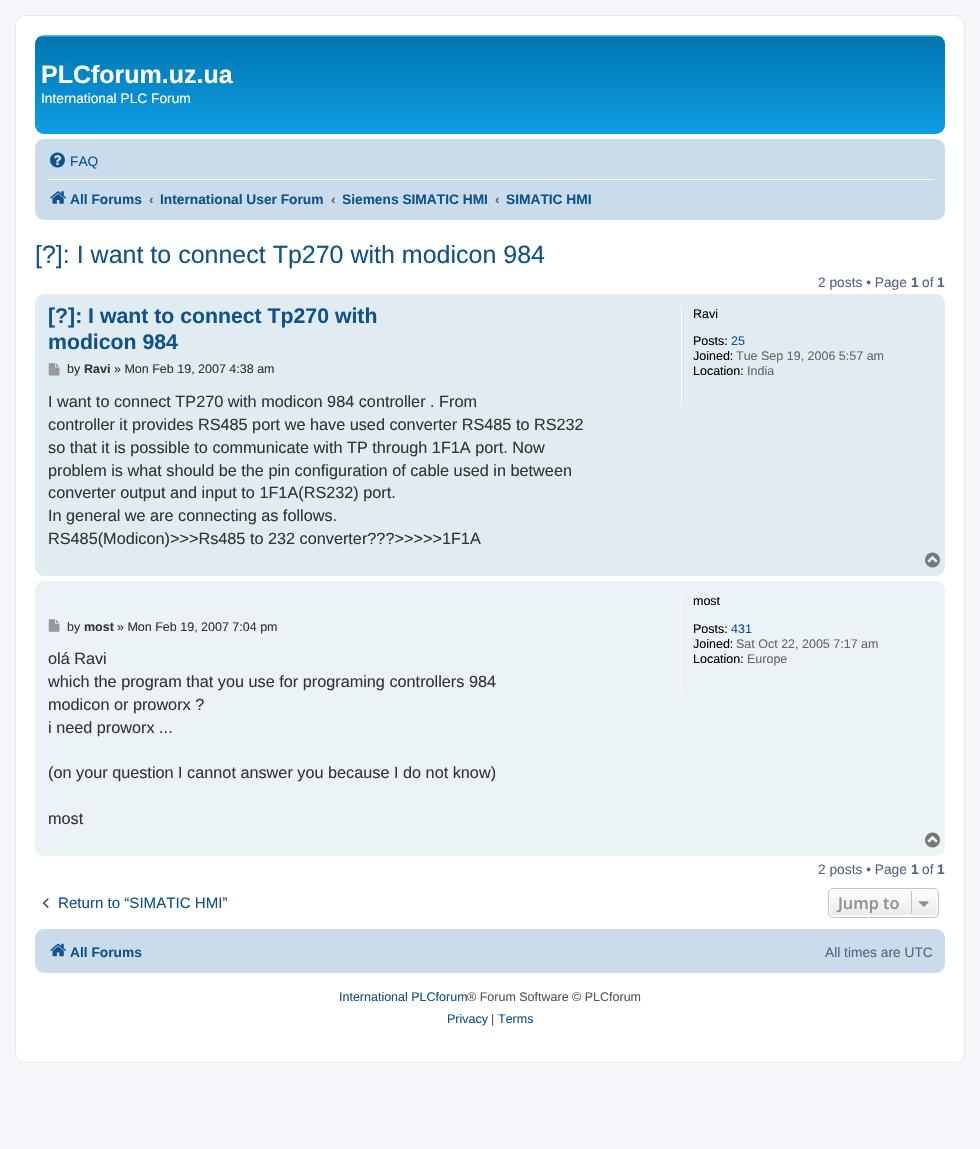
void draw(SkCanvas* canvas) {
	SkPaint fill;
	fill.setAntiAlias(true);
	auto makeFont = [&](const char* family, int weight, float size, bool italic = false) {
		SkFontStyle style(weight, SkFontStyle::kNormal_Width,
			italic ? SkFontStyle::kItalic_Slant : SkFontStyle::kUpright_Slant);
		SkFont result(fontMgr->matchFamilyStyle(family, style), size);
		result.setSubpixel(true);
		return result;
	};
	auto text = [&](const char* s, float x, float y, const SkFont& font) {
		canvas->drawString(s, x, y, font, fill);
	};
	auto box = [&](float l, float t, float r, float b) {
		canvas->drawRect(SkRect::MakeLTRB(l, t, r, b), fill);
	};
	auto roundBox = [&](float l, float t, float r, float b, float radius) {
		canvas->drawRoundRect(SkRect::MakeLTRB(l, t, r, b), radius, radius, fill);
	};
	auto picture = [&](const char* path, float l, float t, float r, float b) {
		auto image = SkImages::DeferredFromEncodedData(SkData::MakeFromFileName(path));
		canvas->drawImageRect(image, SkRect::MakeLTRB(l, t, r, b), SkSamplingOptions());
	};
	canvas->clear(0xFFF5F7FA);
	fill.setColor(0xFFFFFFFF);
	canvas->drawRoundRect(SkRect::MakeLTRB(15.5f, 15.5f, 964.5f, 1062.5f), 9.5f, 9.5f, fill);
	fill.setStyle(SkPaint::kStroke_Style);
	fill.setStrokeWidth(1);
	fill.setColor(0xFFE6E9ED);
	canvas->drawRoundRect(SkRect::MakeLTRB(15.5f, 15.5f, 964.5f, 1062.5f), 9.5f, 9.5f, fill);
	fill.setStyle(SkPaint::kFill_Style);
	{
		const SkColor colors[] = {0xFF6ACEFF, 0xFF0076B1, 0xFF12A3EB};
		const float stops[] = {0, 0.02f, 1};
		const SkPoint ends[] = {{490, 35}, {490, 150}};
		fill.setShader(SkGradientShader::MakeLinear(ends, colors, stops, 3, SkTileMode::kClamp));
		fill.setAlpha(255);
	}
	roundBox(35, 35, 945, 134, 9);
	fill.setShader(nullptr);
	fill.setColor(0xFFCADCEB);
	roundBox(35, 139, 945, 220, 9);
	picture("image0.png", 50, 152, 65, 168);
	fill.setColor(0xFFFFFFFF);
	box(48, 179, 933, 180);
	picture("image1.png", 50, 191, 66, 204);
	fill.setColor(0xFFE1EBF2);
	roundBox(35, 294, 945, 576, 9);
	picture("image2.png", 48, 363, 60, 376);
	fill.setColor(0xFFFFFFFF);
	box(681, 306, 682, 406);
	picture("image3.png", 925, 552, 940, 568);
	fill.setColor(0xFFECF3F7);
	roundBox(35, 581, 945, 856, 9);
	picture("image4.png", 48, 619, 60, 632);
	fill.setColor(0xFFFFFFFF);
	box(681, 594, 682, 694);
	picture("image5.png", 925, 832, 940, 848);
	picture("image6.png", 43, 898, 49, 908);
	canvas->save();
	canvas->clipPath(SkPathBuilder().moveTo(833, 888).lineTo(934, 888).cubicTo(937, 888, 939, 890, 939, 893).lineTo(939, 913).cubicTo(939, 916, 937, 918, 934, 918).lineTo(833, 918).cubicTo(830, 918, 828, 916, 828, 913).lineTo(828, 893).cubicTo(828, 890, 830, 888, 833, 888).close().detach(), true);
	{
		const SkColor colors[] = {0xFFFFFFFF, 0xFFE9E9E9};
		const float stops[] = {0, 1};
		const SkPoint ends[] = {{883, 889}, {883, 916}};
		fill.setShader(SkGradientShader::MakeLinear(ends, colors, stops, 2, SkTileMode::kClamp));
		fill.setAlpha(255);
	}
	box(828, 889, 939, 916);
	canvas->restore();
	fill.setStyle(SkPaint::kStroke_Style);
	fill.setShader(nullptr);
	fill.setColor(0xFFFFFFFF);
	canvas->drawRoundRect(SkRect::MakeLTRB(829.5f, 889.5f, 937.5f, 915.5f), 3.5f, 3.5f, fill);
	fill.setColor(0xFFC7C3BF);
	canvas->drawRoundRect(SkRect::MakeLTRB(828.5f, 888.5f, 938.5f, 917.5f), 4.5f, 4.5f, fill);
	fill.setStyle(SkPaint::kFill_Style);
	box(911, 891, 912, 914);
	picture("image7.png", 918, 901, 929, 907);
	fill.setColor(0xFFCADCEB);
	roundBox(35, 929, 945, 973, 9);
	picture("image8.png", 50, 943, 66, 957);
	auto font1 = makeFont("Liberation Sans", 700, 25);
	fill.setColor(0xFFFFFFFF);
	text("PLCforum.uz.ua", 41, 83, font1);
	auto font2 = makeFont("Liberation Sans", 400, 13.75f);
	text("International PLC Forum", 41, 103, font2);
	fill.setColor(0xFF105289);
	text("FAQ", 70, 166, font2);
	auto font3 = makeFont("Liberation Sans", 700, 13.75f);
	text("All Forums", 70, 204, font3);
	fill.setColor(0xFF536482);
	text("‹", 149, 204, font3);
	fill.setColor(0xFF105289);
	text("International User Forum", 160, 204, font3);
	fill.setColor(0xFF536482);
	text("‹", 331, 204, font3);
	canvas->save();
	canvas->clipRect(SkRect::MakeLTRB(343, 184, 488, 214));
	fill.setColor(0xFF105289);
	text("Siemens SIMATIC HMI", 342, 204, font3);
	canvas->restore();
	fill.setColor(0xFF536482);
	text("‹", 495, 204, font3);
	fill.setColor(0xFF105289);
	text("SIMATIC HMI", 506, 204, font3);
	auto font4 = makeFont("Liberation Sans", 400, 25);
	text("[?]: I want to connect Tp270 with modicon 984", 35, 263, font4);
	fill.setColor(0xFF536482);
	text("2 posts • Page", 818, 287, font2);
	text("1", 911, 287, font3);
	text("of", 922, 287, font2);
	text("1", 937, 287, font3);
	auto font5 = makeFont("Liberation Sans", 700, 21.25f);
	fill.setColor(0xFF105289);
	text("[?]: I want to connect Tp270 with", 48, 323, font5);
	text("modicon 984", 48, 349, font5);
	auto font6 = makeFont("Liberation Sans", 400, 12.5f);
	fill.setColor(0xFF333333);
	text("by", 67, 373, font6);
	auto font7 = makeFont("Liberation Sans", 700, 12.5f);
	text("Ravi", 84, 373, font7);
	text("» Mon Feb 19, 2007 4:38 am", 114, 373, font6);
	auto font8 = makeFont("Liberation Sans", 400, 16.25f);
	text("I want to connect TP270 with modicon 984 controller . From", 48, 407, font8);
	text("controller it provides RS485 port we have used converter RS485 to RS232", 48, 430, font8);
	text("so that it is possible to communicate with TP through 1F1A port. Now", 48, 453, font8);
	text("problem is what should be the pin configuration of cable used in between", 48, 476, font8);
	text("converter output and input to 1F1A(RS232) port.", 48, 498, font8);
	text("In general we are connecting as follows.", 48, 521, font8);
	text("RS485(Modicon)>>>Rs485 to 232 converter?\077?>>>>>1F1A", 48, 544, font8);
	fill.setColor(0xFF000000);
	text("Ravi", 693, 318, font6);
	text("Posts:", 693, 345, font6);
	fill.setColor(0xFF105289);
	text("25", 731, 345, font6);
	fill.setColor(0xFF000000);
	text("Joined:", 693, 360, font6);
	fill.setColor(0xFF666666);
	text("Tue Sep 19, 2006 5:57 am", 736, 360, font6);
	fill.setColor(0xFF000000);
	text("Location:", 693, 375, font6);
	fill.setColor(0xFF666666);
	text("India", 747, 375, font6);
	fill.setColor(0xFF333333);
	text("by", 67, 631, font6);
	text("most", 84, 631, font7);
	text("» Mon Feb 19, 2007 7:04 pm", 117, 631, font6);
	text("olá Ravi", 48, 664, font8);
	text("which the program that you use for programing controllers 984", 48, 687, font8);
	text("modicon or proworx ?", 48, 710, font8);
	text("i need proworx ...", 48, 733, font8);
	text("(on your question I cannot answer you because I do not know)", 48, 778, font8);
	text("most", 48, 824, font8);
	fill.setColor(0xFF000000);
	text("most", 693, 605, font6);
	text("Posts:", 693, 633, font6);
	fill.setColor(0xFF105289);
	text("431", 731, 633, font6);
	fill.setColor(0xFF000000);
	text("Joined:", 693, 648, font6);
	fill.setColor(0xFF666666);
	text("Sat Oct 22, 2005 7:17 am", 736, 648, font6);
	fill.setColor(0xFF000000);
	text("Location:", 693, 663, font6);
	fill.setColor(0xFF666666);
	text("Europe", 747, 663, font6);
	fill.setColor(0xFF536482);
	text("2 posts • Page", 818, 874, font2);
	text("1", 911, 874, font3);
	text("of", 922, 874, font2);
	text("1", 937, 874, font3);
	auto font9 = makeFont("Liberation Sans", 400, 15.1f);
	fill.setColor(0xFF105289);
	text("Return to “SIMATIC HMI”", 58, 908, font9);
	auto font10 = makeFont("Open Sans", 600, 16.25f);
	fill.setColor(0xFF8F8F8F);
	text("Jump to", 838, 909, font10);
	fill.setColor(0xFF105289);
	text("All Forums", 70, 957, font3);
	fill.setColor(0xFF536482);
	text("All times are UTC", 825, 957, font2);
	fill.setColor(0xFF105289);
	text("International PLCforum", 339, 1001, font6);
	fill.setColor(0xFF555555);
	text("® Forum Software © PLCforum", 467, 1001, font6);
	fill.setColor(0xFF105289);
	text("Privacy", 447, 1023, font6);
	fill.setColor(0xFF555555);
	text("|", 491, 1023, font6);
	fill.setColor(0xFF105289);
	text("Terms", 498, 1023, font6);
}
